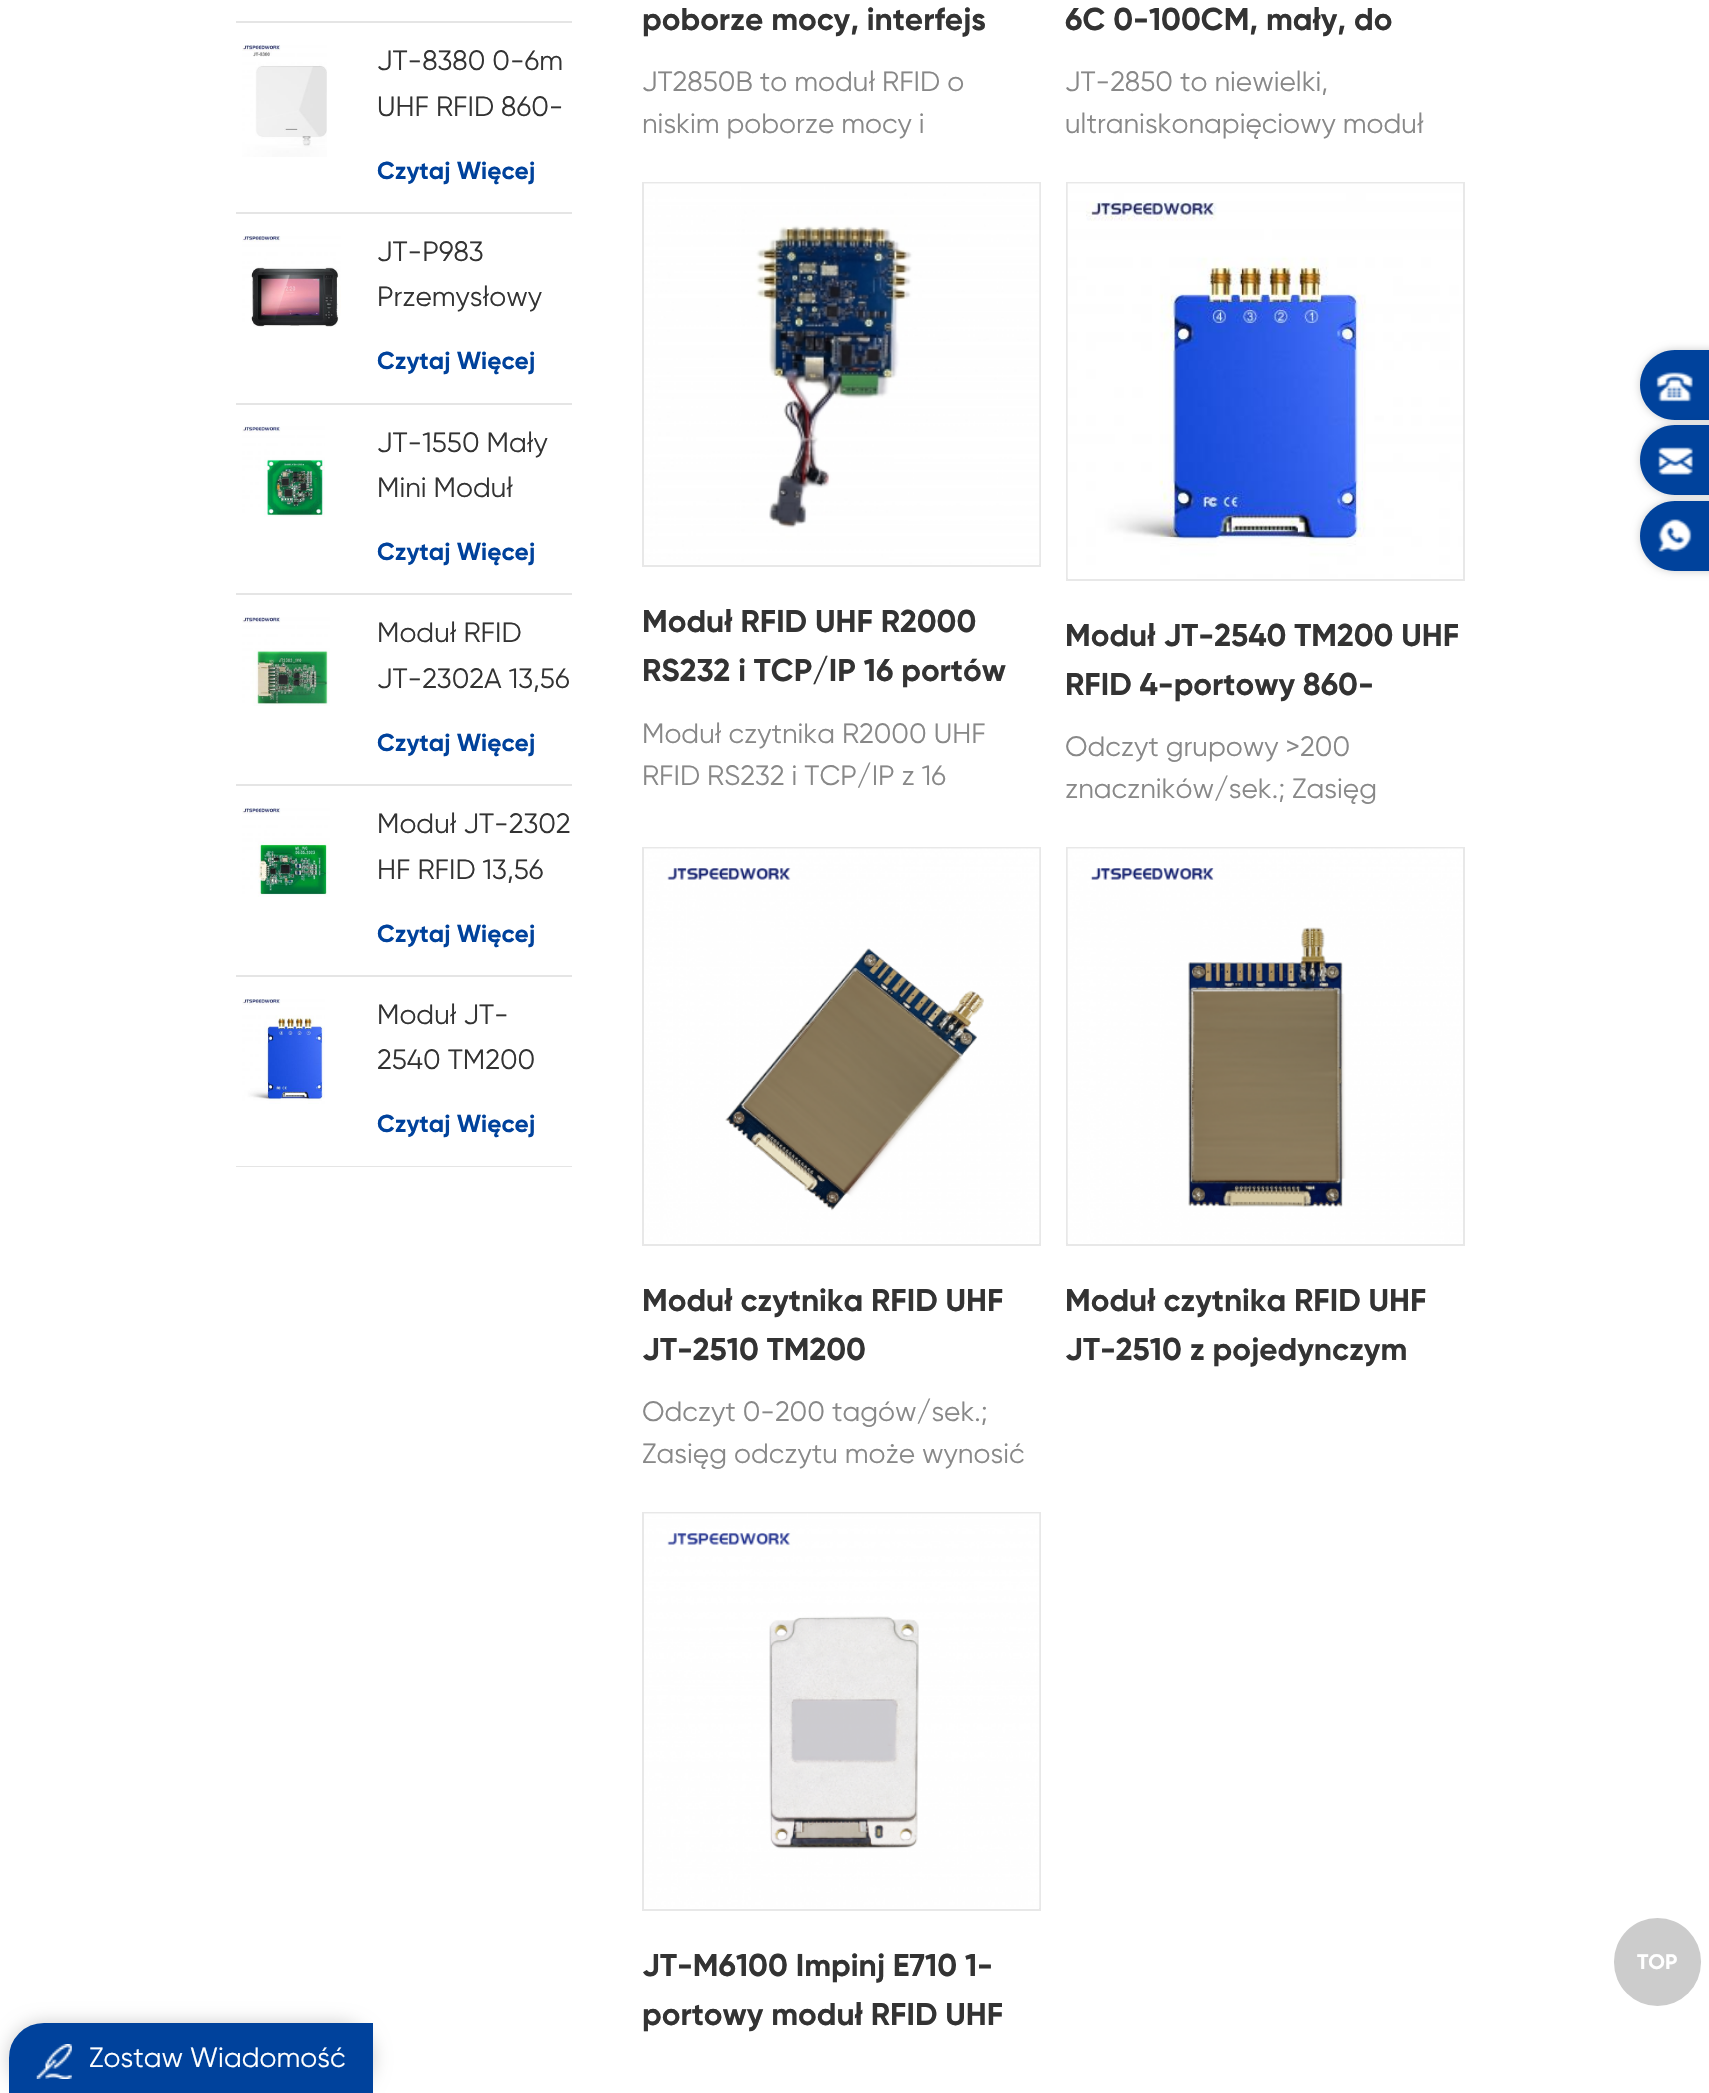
void draw(SkCanvas* canvas) {
	SkPaint fill;
	fill.setAntiAlias(true);
	auto makeFont = [&](const char* family, int weight, float size, bool italic = false) {
		SkFontStyle style(weight, SkFontStyle::kNormal_Width,
			italic ? SkFontStyle::kItalic_Slant : SkFontStyle::kUpright_Slant);
		SkFont result(fontMgr->matchFamilyStyle(family, style), size);
		result.setSubpixel(true);
		return result;
	};
	auto text = [&](const char* s, float x, float y, const SkFont& font) {
		canvas->drawString(s, x, y, font, fill);
	};
	auto box = [&](float l, float t, float r, float b) {
		canvas->drawRect(SkRect::MakeLTRB(l, t, r, b), fill);
	};
	auto roundBox = [&](float l, float t, float r, float b, float radius) {
		canvas->drawRoundRect(SkRect::MakeLTRB(l, t, r, b), radius, radius, fill);
	};
	auto picture = [&](const char* path, float l, float t, float r, float b) {
		auto image = SkImages::DeferredFromEncodedData(SkData::MakeFromFileName(path));
		canvas->drawImageRect(image, SkRect::MakeLTRB(l, t, r, b), SkSamplingOptions());
	};
	canvas->clear(0xFFFFFFFF);
	fill.setColor(0xFFE5E5E5);
	box(236, 21, 572, 23);
	box(236, 212, 572, 214);
	picture("image0.png", 242, 45, 327, 157);
	box(236, 403, 572, 405);
	picture("image1.png", 242, 236, 341, 327);
	box(236, 593, 572, 595);
	picture("image2.png", 242, 426, 325, 517);
	box(236, 784, 572, 786);
	picture("image3.png", 242, 617, 330, 706);
	box(236, 975, 572, 977);
	picture("image4.png", 242, 808, 330, 897);
	box(236, 1166, 572, 1167);
	picture("image5.png", 242, 999, 325, 1104);
	fill.setStyle(SkPaint::kStroke_Style);
	fill.setStrokeWidth(2);
	fill.setColor(0xFFE8E8E8);
	canvas->drawRect(SkRect::MakeLTRB(643, 183, 1040, 566), fill);
	picture("image6.png", 644, 183, 1040, 564);
	canvas->drawRect(SkRect::MakeLTRB(1067, 183, 1464, 580), fill);
	picture("image7.png", 1067, 183, 1463, 578);
	canvas->drawRect(SkRect::MakeLTRB(643, 848, 1040, 1245), fill);
	picture("image8.png", 644, 848, 1040, 1243);
	canvas->drawRect(SkRect::MakeLTRB(1067, 848, 1464, 1245), fill);
	picture("image9.png", 1067, 848, 1463, 1243);
	canvas->drawRect(SkRect::MakeLTRB(643, 1513, 1040, 1910), fill);
	picture("image10.png", 644, 1513, 1040, 1908);
	fill.setStyle(SkPaint::kFill_Style);
	fill.setColor(0x33000000);
	fill.setMaskFilter(SkMaskFilter::MakeBlur(kNormal_SkBlurStyle, 4.5f));
	canvas->drawRoundRect(SkRect::MakeLTRB(1640, 350, 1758, 420), 35, 35, fill);
	fill.setMaskFilter(nullptr);
	fill.setColor(0xFF00429C);
	canvas->drawPath(SkPathBuilder().moveTo(1675, 350).lineTo(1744, 350).lineTo(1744, 420).lineTo(1675, 420).cubicTo(1655.5f, 420, 1640, 404.5f, 1640, 385).cubicTo(1640, 365.5f, 1655.5f, 350, 1675, 350).close().detach(), fill);
	picture("image11.png", 1656, 372, 1693, 402);
	fill.setColor(0x33000000);
	fill.setMaskFilter(SkMaskFilter::MakeBlur(kNormal_SkBlurStyle, 4.5f));
	canvas->drawRoundRect(SkRect::MakeLTRB(1640, 425, 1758, 495), 35, 35, fill);
	fill.setMaskFilter(nullptr);
	fill.setColor(0xFF00429C);
	canvas->drawPath(SkPathBuilder().moveTo(1675, 425).lineTo(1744, 425).lineTo(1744, 495).lineTo(1675, 495).cubicTo(1655.5f, 495, 1640, 479.5f, 1640, 460).cubicTo(1640, 440.5f, 1655.5f, 425, 1675, 425).close().detach(), fill);
	picture("image12.png", 1658, 447, 1693, 475);
	fill.setColor(0x33000000);
	fill.setMaskFilter(SkMaskFilter::MakeBlur(kNormal_SkBlurStyle, 4.5f));
	canvas->drawRoundRect(SkRect::MakeLTRB(1640, 501, 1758, 571), 35, 35, fill);
	fill.setMaskFilter(nullptr);
	fill.setColor(0xFF00429C);
	canvas->drawPath(SkPathBuilder().moveTo(1675, 501).lineTo(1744, 501).lineTo(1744, 571).lineTo(1675, 571).cubicTo(1655.5f, 571, 1640, 555.5f, 1640, 536).cubicTo(1640, 516.5f, 1655.5f, 501, 1675, 501).close().detach(), fill);
	picture("image13.png", 1658, 519, 1692, 552);
	fill.setColor(0xFFCCCCCC);
	roundBox(1614, 1918, 1701, 2006, 43.5f);
	fill.setColor(0x33000000);
	fill.setMaskFilter(SkMaskFilter::MakeBlur(kNormal_SkBlurStyle, 9));
	canvas->drawRoundRect(SkRect::MakeLTRB(9, 2023, 373, 2093), 35, 35, fill);
	fill.setMaskFilter(nullptr);
	fill.setColor(0xFF00429C);
	canvas->drawPath(SkPathBuilder().moveTo(44, 2024).lineTo(372, 2024).lineTo(372, 2092).lineTo(10, 2092).lineTo(10, 2058).cubicTo(10, 2039, 25, 2024, 44, 2024).close().detach(), fill);
	fill.setStyle(SkPaint::kStroke_Style);
	canvas->drawPath(SkPathBuilder().moveTo(44, 2024).lineTo(372, 2024).lineTo(372, 2092).lineTo(10, 2092).lineTo(10, 2058).cubicTo(10, 2039, 25, 2024, 44, 2024).close().detach(), fill);
	picture("image14.png", 36, 2044, 72, 2079);
	auto font1 = makeFont("Gilroy", 400, 28);
	fill.setStyle(SkPaint::kFill_Style);
	fill.setColor(0xFF333333);
	text("JT-8380 0-6m", 377, 70, font1);
	text("UHF RFID 860-", 377, 116, font1);
	auto font2 = makeFont("Gilroy", 700, 24.5f);
	fill.setColor(0xFF00429C);
	text("Czytaj Więcej", 377, 179, font2);
	fill.setColor(0xFF333333);
	text("JT-P983", 377, 261, font1);
	text("Przemysłowy", 377, 306, font1);
	fill.setColor(0xFF00429C);
	text("Czytaj Więcej", 377, 369, font2);
	fill.setColor(0xFF333333);
	text("JT-1550 Mały", 377, 452, font1);
	text("Mini Moduł", 377, 497, font1);
	fill.setColor(0xFF00429C);
	text("Czytaj Więcej", 377, 560, font2);
	fill.setColor(0xFF333333);
	text("Moduł RFID", 377, 642, font1);
	text("JT-2302A 13,56", 377, 688, font1);
	fill.setColor(0xFF00429C);
	text("Czytaj Więcej", 377, 751, font2);
	fill.setColor(0xFF333333);
	text("Moduł JT-2302", 377, 833, font1);
	text("HF RFID 13,56", 377, 879, font1);
	fill.setColor(0xFF00429C);
	text("Czytaj Więcej", 377, 942, font2);
	fill.setColor(0xFF333333);
	text("Moduł JT-", 377, 1024, font1);
	text("2540 TM200", 377, 1069, font1);
	fill.setColor(0xFF00429C);
	text("Czytaj Więcej", 377, 1132, font2);
	auto font3 = makeFont("Gilroy", 700, 31.5f);
	fill.setColor(0xFF333333);
	text("poborze mocy, interfejs", 642, 30, font3);
	fill.setColor(0xFF888888);
	text("JT2850B to moduł RFID o", 642, 91, font1);
	text("niskim poborze mocy i", 642, 133, font1);
	fill.setColor(0xFF333333);
	text("6C 0-100CM, mały, do", 1065, 30, font3);
	fill.setColor(0xFF888888);
	text("JT-2850 to niewielki,", 1065, 91, font1);
	text("ultraniskonapięciowy moduł", 1065, 133, font1);
	fill.setColor(0xFF333333);
	text("Moduł RFID UHF R2000", 642, 632, font3);
	text("RS232 i TCP/IP 16 portów", 642, 681, font3);
	fill.setColor(0xFF888888);
	text("Moduł czytnika R2000 UHF", 642, 743, font1);
	text("RFID RS232 i TCP/IP z 16", 642, 785, font1);
	fill.setColor(0xFF333333);
	text("Moduł JT-2540 TM200 UHF", 1065, 646, font3);
	text("RFID 4-portowy 860-", 1065, 695, font3);
	fill.setColor(0xFF888888);
	text("Odczyt grupowy >200", 1065, 756, font1);
	text("znaczników/sek.; Zasięg", 1065, 798, font1);
	fill.setColor(0xFF333333);
	text("Moduł czytnika RFID UHF", 642, 1311, font3);
	text("JT-2510 TM200", 642, 1360, font3);
	fill.setColor(0xFF888888);
	text("Odczyt 0-200 tagów/sek.;", 642, 1421, font1);
	text("Zasięg odczytu może wynosić", 642, 1463, font1);
	fill.setColor(0xFF333333);
	text("Moduł czytnika RFID UHF", 1065, 1311, font3);
	text("JT-2510 z pojedynczym", 1065, 1360, font3);
	text("JT-M6100 Impinj E710 1-", 642, 1976, font3);
	text("portowy moduł RFID UHF", 642, 2025, font3);
	auto font4 = makeFont("Gilroy", 700, 21);
	fill.setColor(0xFFFFFFFF);
	text("TOP", 1637, 1969, font4);
	text("Zostaw Wiadomość", 89, 2067, font1);
}
